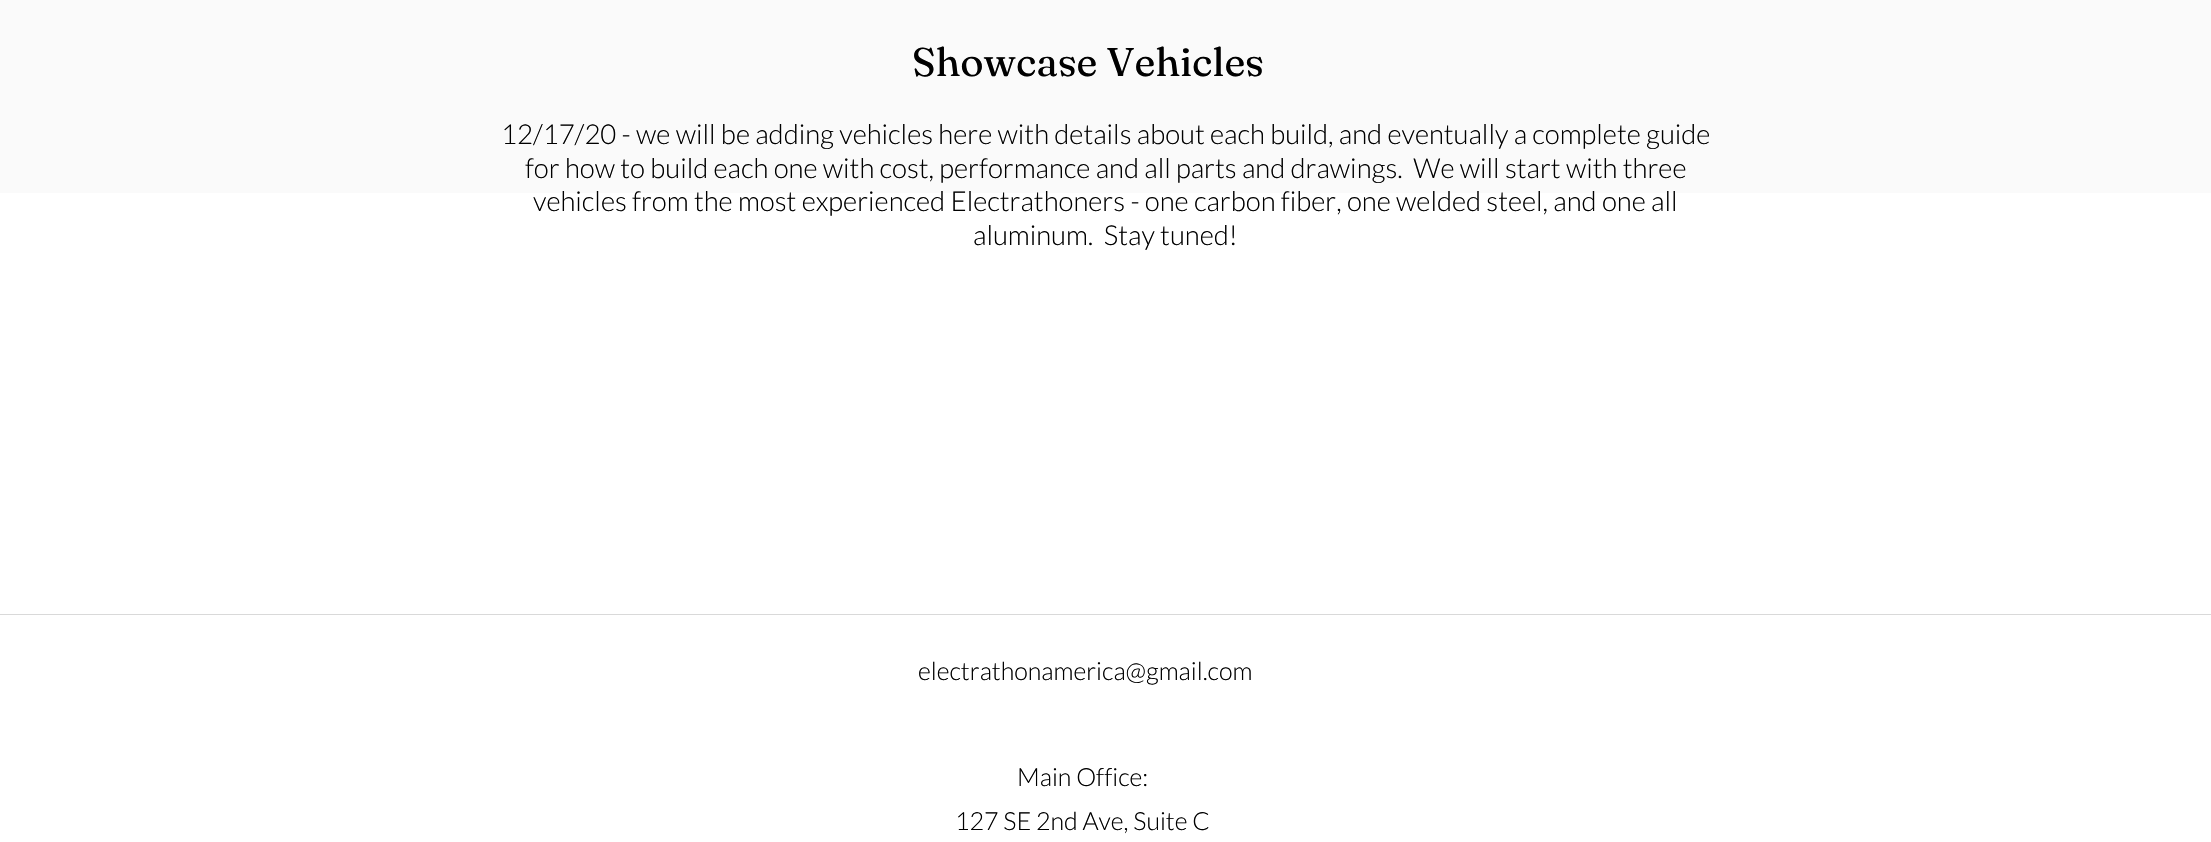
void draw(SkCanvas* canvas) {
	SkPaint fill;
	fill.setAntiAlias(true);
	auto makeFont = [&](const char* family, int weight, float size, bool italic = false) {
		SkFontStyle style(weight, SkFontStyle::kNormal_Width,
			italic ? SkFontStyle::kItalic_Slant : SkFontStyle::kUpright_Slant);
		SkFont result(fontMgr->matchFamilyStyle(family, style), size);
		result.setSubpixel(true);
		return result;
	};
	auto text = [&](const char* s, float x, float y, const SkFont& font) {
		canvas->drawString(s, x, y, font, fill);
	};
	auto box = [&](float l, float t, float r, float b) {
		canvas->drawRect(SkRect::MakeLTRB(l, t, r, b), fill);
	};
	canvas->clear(0xFFFFFFFF);
	fill.setColor(0xFFFAFAFA);
	box(0, 0, 2211, 193);
	fill.setColor(0xFFD9D9D9);
	box(0, 614, 2211, 615);
	auto font1 = makeFont("Fraunces", 400, 40);
	fill.setColor(0xFF000000);
	text("Showcase Vehicles", 912, 76, font1);
	auto font2 = makeFont("Lato", 300, 27.5f);
	text("12/17/20 - we will be adding vehicles here with details about each build, and eventually a complete guide", 501, 144, font2);
	text("for how to build each one with cost, performance and all parts and drawings.  We will start with three", 525, 178, font2);
	text("vehicles from the most experienced Electrathoners - one carbon fiber, one welded steel, and one all", 533, 211, font2);
	text("aluminum.  Stay tuned!", 973, 245, font2);
	auto font3 = makeFont("Lato", 300, 25);
	text("electrathonamerica@gmail.com", 918, 680, font3);
	text("Main Office:", 1017, 786, font3);
	text("127 SE 2nd Ave, Suite C", 955, 830, font3);
}
